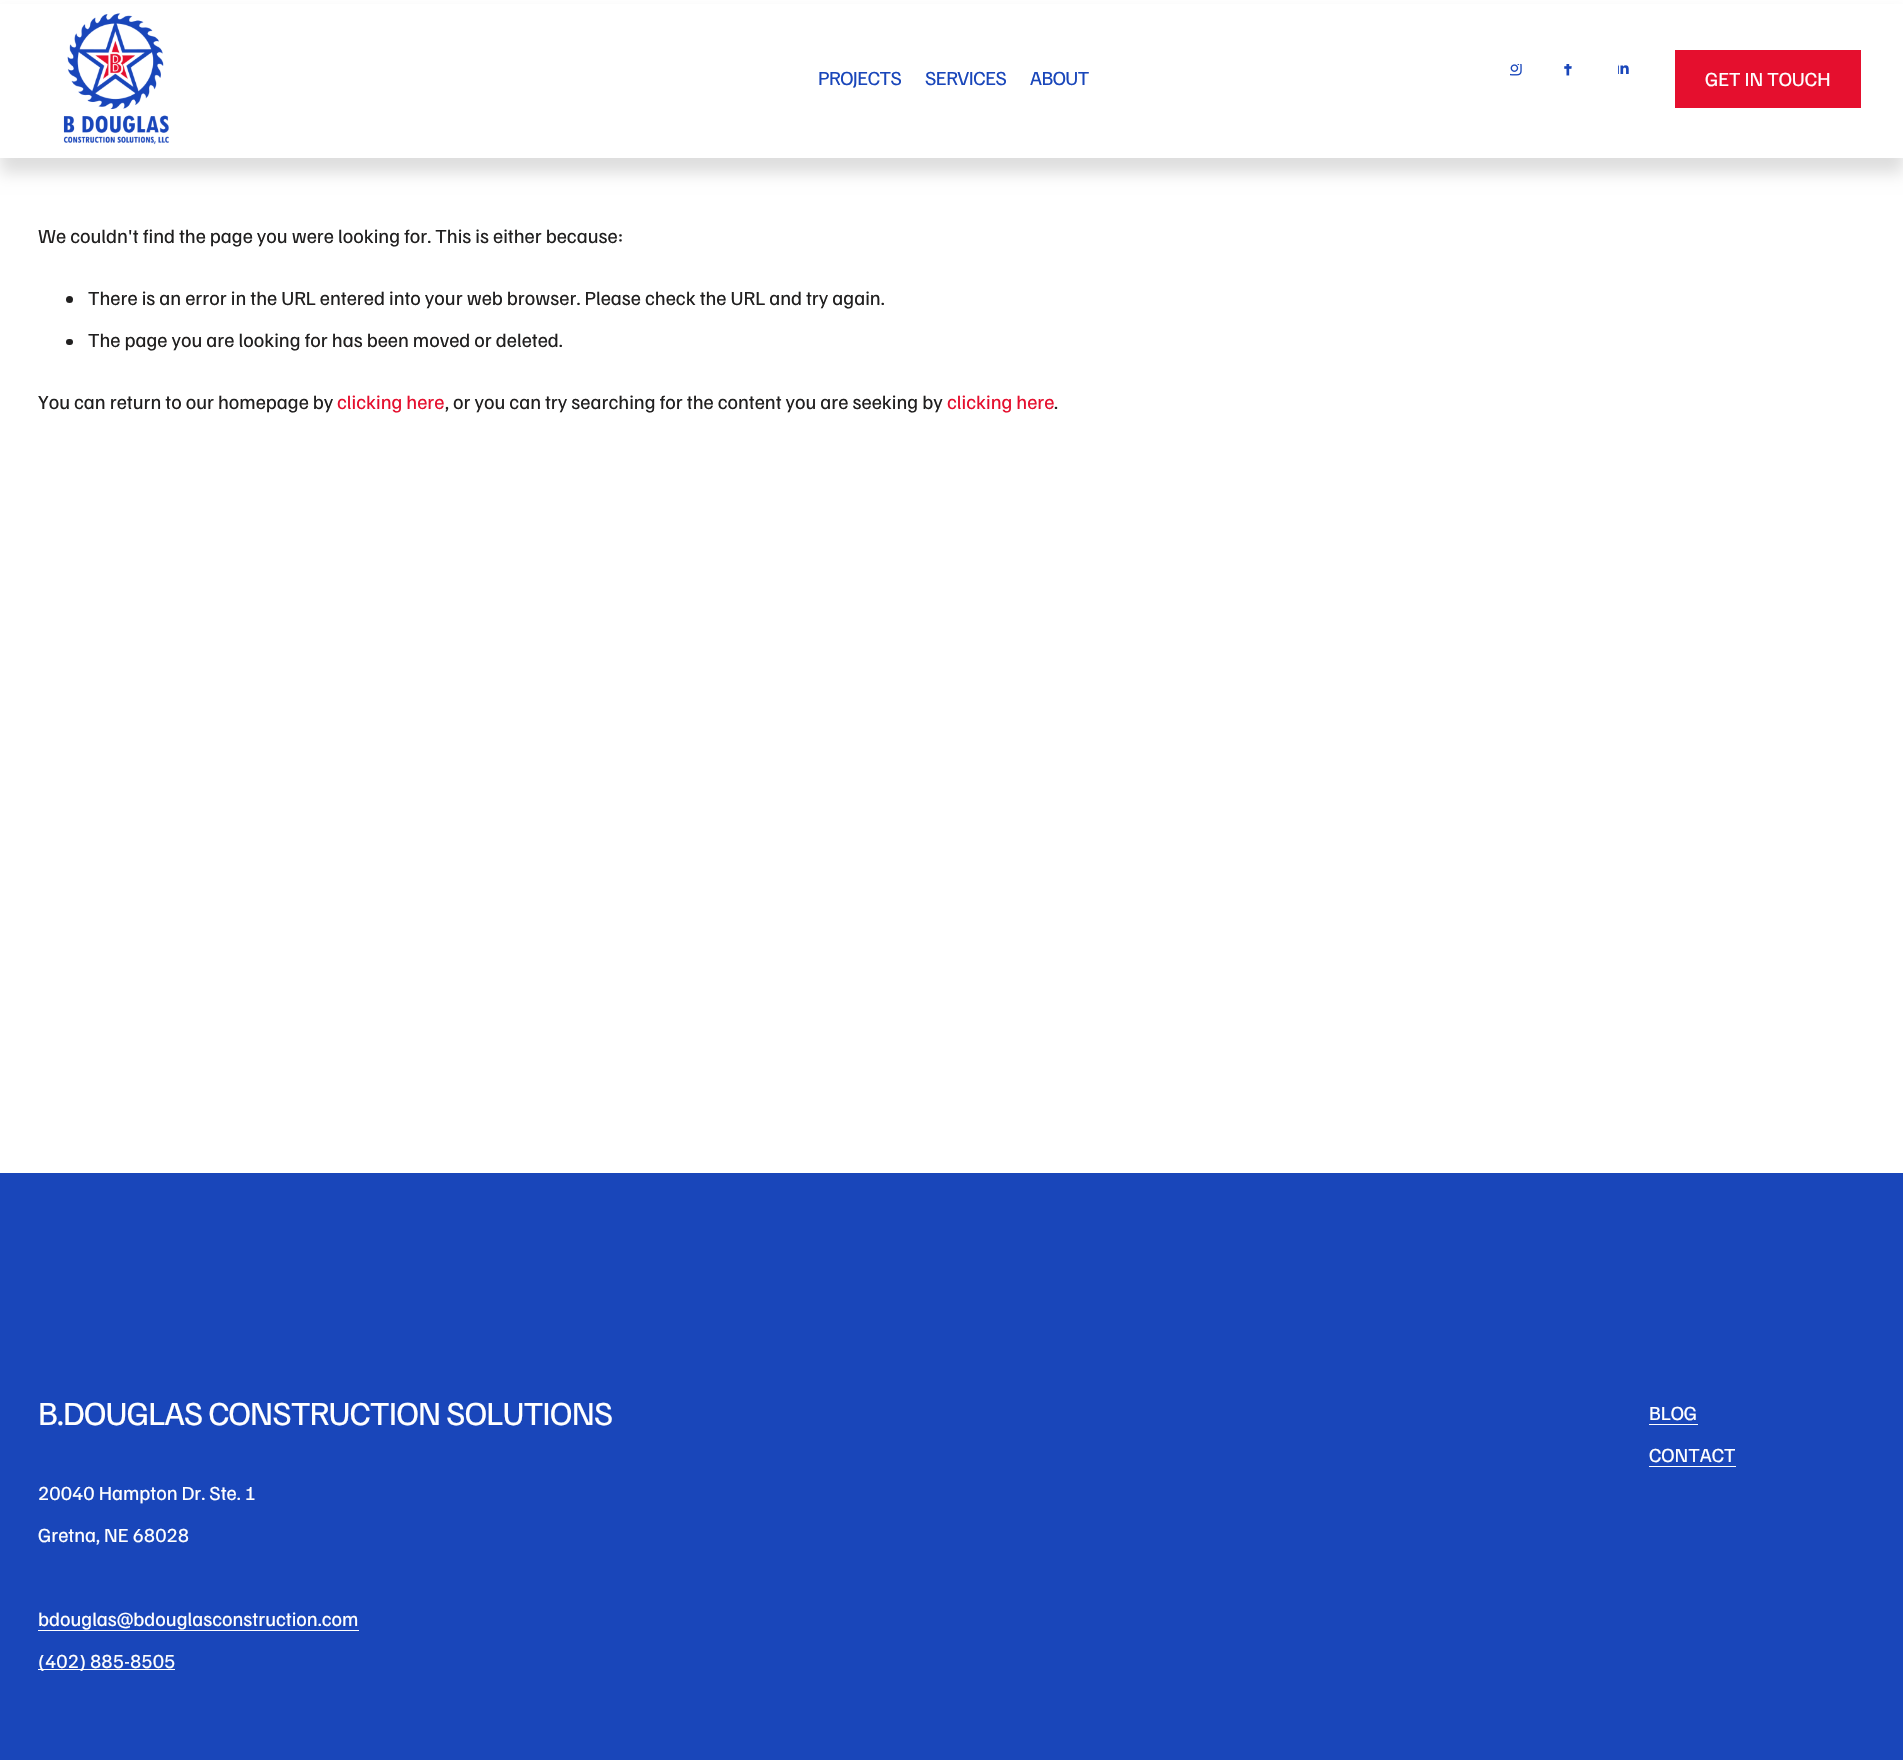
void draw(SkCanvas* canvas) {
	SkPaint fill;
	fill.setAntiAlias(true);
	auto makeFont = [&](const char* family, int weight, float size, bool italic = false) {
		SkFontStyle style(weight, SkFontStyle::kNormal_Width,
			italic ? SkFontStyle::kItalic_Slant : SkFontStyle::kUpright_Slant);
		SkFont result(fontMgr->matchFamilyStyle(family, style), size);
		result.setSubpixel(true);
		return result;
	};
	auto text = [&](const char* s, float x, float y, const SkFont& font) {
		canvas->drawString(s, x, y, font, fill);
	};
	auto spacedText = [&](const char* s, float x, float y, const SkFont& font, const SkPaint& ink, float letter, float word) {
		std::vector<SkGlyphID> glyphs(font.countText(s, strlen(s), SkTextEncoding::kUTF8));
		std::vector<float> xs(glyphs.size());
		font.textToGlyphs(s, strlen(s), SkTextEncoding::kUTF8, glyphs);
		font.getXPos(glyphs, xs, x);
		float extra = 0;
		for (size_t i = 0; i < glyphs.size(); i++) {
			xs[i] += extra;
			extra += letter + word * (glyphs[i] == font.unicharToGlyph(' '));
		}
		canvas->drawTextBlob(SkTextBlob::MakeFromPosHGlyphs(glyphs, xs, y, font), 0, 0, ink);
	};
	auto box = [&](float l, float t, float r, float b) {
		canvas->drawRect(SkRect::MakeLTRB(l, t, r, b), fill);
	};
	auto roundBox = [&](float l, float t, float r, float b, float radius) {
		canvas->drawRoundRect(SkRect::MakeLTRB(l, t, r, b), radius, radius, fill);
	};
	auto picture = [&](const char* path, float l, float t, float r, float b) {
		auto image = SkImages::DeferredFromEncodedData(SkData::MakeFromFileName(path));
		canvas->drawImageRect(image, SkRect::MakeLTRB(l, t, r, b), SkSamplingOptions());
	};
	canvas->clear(0xFFFFFFFF);
	fill.setColor(0xFFDEDEDE);
	fill.setMaskFilter(SkMaskFilter::MakeBlur(kNormal_SkBlurStyle, 7.5f));
	canvas->drawRect(SkRect::MakeLTRB(0, 15, 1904, 173), fill);
	fill.setMaskFilter(nullptr);
	fill.setColor(0xFFFFFFFF);
	box(0, 4, 1903, 158);
	picture("image0.png", 63, 13, 169, 145);
	picture("image1.png", 1510, 64, 1522, 76);
	picture("image2.png", 1564, 64, 1572, 76);
	picture("image3.png", 1618, 64, 1629, 74);
	fill.setColor(0xFFE50F2E);
	box(1675, 50, 1861, 108);
	fill.setColor(0xFF212020);
	canvas->drawCircle(69.5f, 299.5f, 3.5f, fill);
	roundBox(66, 339, 73, 345, 3);
	fill.setColor(0xFF1946BA);
	box(0, 1173, 1903, 1760);
	fill.setColor(0xFFFFFFFF);
	box(38, 1630, 359, 1631);
	box(38, 1669, 175, 1670);
	box(1649, 1424, 1698, 1425);
	box(1649, 1466, 1736, 1467);
	auto font1 = makeFont("Familjen Grotesk", 400, 20);
	fill.setColor(0xFF1946BA);
	spacedText("PROJECTS", 818, 85, font1, fill, -0.5f, 0);
	spacedText("SERVICES", 925, 85, font1, fill, -0.5f, 0);
	spacedText("ABOUT", 1030, 85, font1, fill, -0.5f, 0);
	fill.setColor(0xFFFFFFFF);
	text("GET IN TOUCH", 1705, 86, font1);
	fill.setColor(0xFF212020);
	text("We couldn't find the page you were looking for. This is either because:", 38, 243, font1);
	text("There is an error in the URL entered into your web browser. Please check the URL and try again.", 88, 305, font1);
	text("The page you are looking for has been moved or deleted.", 88, 347, font1);
	text("You can return to our homepage by", 38, 409, font1);
	fill.setColor(0xFFE50F2E);
	text("clicking here", 337, 409, font1);
	fill.setColor(0xFF212020);
	text(", or you can try searching for the content you are seeking by", 445, 409, font1);
	fill.setColor(0xFFE50F2E);
	text("clicking here", 947, 409, font1);
	fill.setColor(0xFF212020);
	text(".", 1054, 409, font1);
	auto font2 = makeFont("Familjen Grotesk", 400, 33.75f);
	fill.setColor(0xFFFFFFFF);
	spacedText("B.DOUGLAS CONSTRUCTION SOLUTIONS", 38, 1425, font2, fill, -0.7f, 0);
	text("20040 Hampton Dr. Ste. 1", 38, 1500, font1);
	text("Gretna, NE 68028", 38, 1542, font1);
	text("bdouglas@bdouglasconstruction.com", 38, 1626, font1);
	text("(402) 885-8505", 38, 1668, font1);
	text("BLOG", 1649, 1420, font1);
	text("CONTACT", 1649, 1462, font1);
}
